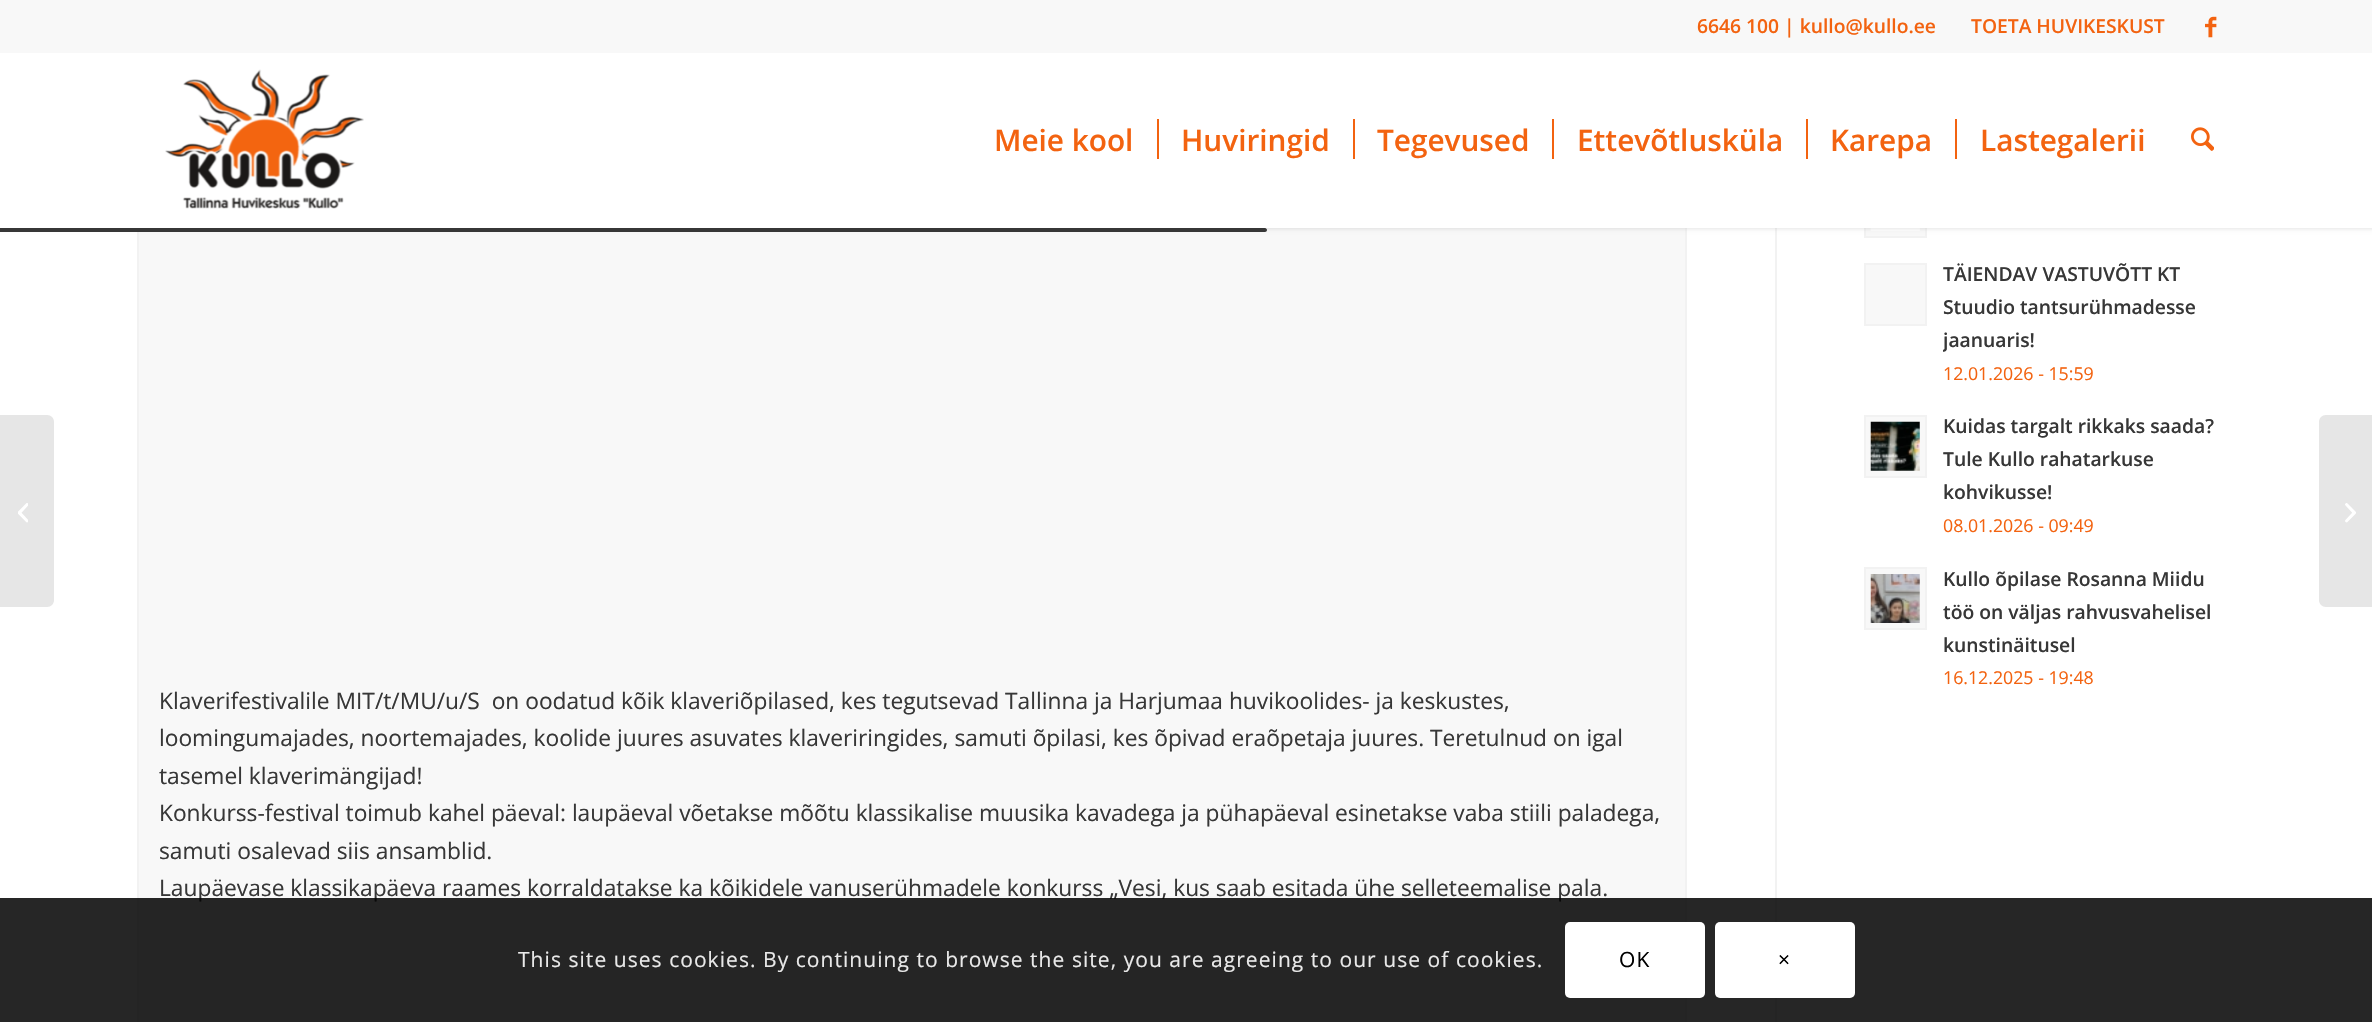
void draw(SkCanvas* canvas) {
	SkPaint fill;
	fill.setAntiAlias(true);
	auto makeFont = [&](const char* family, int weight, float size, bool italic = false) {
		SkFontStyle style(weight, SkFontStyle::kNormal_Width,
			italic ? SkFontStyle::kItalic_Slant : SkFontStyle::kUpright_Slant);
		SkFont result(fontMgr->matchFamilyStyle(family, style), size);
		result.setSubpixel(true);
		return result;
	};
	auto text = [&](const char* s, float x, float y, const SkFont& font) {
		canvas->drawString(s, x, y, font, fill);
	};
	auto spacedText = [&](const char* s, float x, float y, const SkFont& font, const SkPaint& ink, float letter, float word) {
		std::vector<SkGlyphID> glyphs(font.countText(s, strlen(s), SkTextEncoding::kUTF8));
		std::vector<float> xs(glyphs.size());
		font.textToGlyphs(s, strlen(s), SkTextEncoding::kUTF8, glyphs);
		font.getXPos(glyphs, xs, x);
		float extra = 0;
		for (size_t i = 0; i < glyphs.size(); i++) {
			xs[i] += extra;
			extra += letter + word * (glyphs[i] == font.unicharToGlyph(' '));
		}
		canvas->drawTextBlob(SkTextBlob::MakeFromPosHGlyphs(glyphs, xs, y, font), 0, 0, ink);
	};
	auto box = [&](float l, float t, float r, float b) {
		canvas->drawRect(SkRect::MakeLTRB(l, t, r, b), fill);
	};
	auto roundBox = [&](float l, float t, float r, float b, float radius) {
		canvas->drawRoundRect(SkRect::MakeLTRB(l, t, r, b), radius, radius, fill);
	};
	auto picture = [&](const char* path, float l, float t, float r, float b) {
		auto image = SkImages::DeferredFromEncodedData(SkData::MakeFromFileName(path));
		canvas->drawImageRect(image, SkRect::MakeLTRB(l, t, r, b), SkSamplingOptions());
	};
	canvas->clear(0xFFFFFFFF);
	fill.setColor(0xFFF8F8F8);
	box(1866, 228, 1925, 236);
	fill.setStyle(SkPaint::kStroke_Style);
	fill.setStrokeWidth(2);
	fill.setColor(0xFFF2F2F2);
	canvas->drawRect(SkRect::MakeLTRB(1865, 176, 1926, 237), fill);
	picture("image4.png", 1870, 228, 1920, 231);
	fill.setStyle(SkPaint::kFill_Style);
	box(1775, 228, 1777, 1022);
	fill.setColor(0xFFF8F8F8);
	box(139, 228, 1685, 1022);
	fill.setColor(0xFFF2F2F2);
	box(1685, 228, 1687, 1022);
	box(137, 232, 139, 1022);
	fill.setColor(0x1A000000);
	fill.setMaskFilter(SkMaskFilter::MakeBlur(kNormal_SkBlurStyle, 2));
	canvas->drawRect(SkRect::MakeLTRB(-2, -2, 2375, 229), fill);
	fill.setMaskFilter(nullptr);
	fill.setColor(0xFFF8F8F8);
	box(0, 0, 2372, 53);
	picture("image0.png", 2205, 16, 2217, 38);
	fill.setColor(0xFFFFFFFF);
	box(0, 53, 2372, 228);
	picture("image1.png", 165, 69, 364, 209);
	fill.setColor(0xFFF36310);
	box(1157, 119, 1159, 159);
	box(1353, 119, 1355, 159);
	box(1552, 119, 1554, 159);
	box(1806, 119, 1808, 159);
	box(1955, 119, 1957, 159);
	picture("image2.png", 2191, 127, 2214, 151);
	fill.setColor(0xFF373737);
	canvas->drawPath(SkPathBuilder().moveTo(0, 228).lineTo(1265, 228).cubicTo(1266, 228, 1267, 229, 1267, 230).cubicTo(1267, 231, 1266, 232, 1265, 232).lineTo(0, 232).close().detach(), fill);
	fill.setColor(0xFFE6E6E6);
	canvas->drawPath(SkPathBuilder().moveTo(0, 415).lineTo(47, 415).cubicTo(51, 415, 54, 418, 54, 422).lineTo(54, 600).cubicTo(54, 604, 51, 607, 47, 607).lineTo(0, 607).close().detach(), fill);
	picture("image3.png", 18, 503, 28, 523);
	fill.setColor(0xFFF8F8F8);
	canvas->drawRect(SkRect::MakeLTRB(1865, 264, 1926, 325), fill);
	fill.setStyle(SkPaint::kStroke_Style);
	fill.setColor(0xFFF2F2F2);
	canvas->drawRect(SkRect::MakeLTRB(1865, 264, 1926, 325), fill);
	fill.setStyle(SkPaint::kFill_Style);
	fill.setColor(0xFFF8F8F8);
	canvas->drawRect(SkRect::MakeLTRB(1865, 416, 1926, 477), fill);
	fill.setStyle(SkPaint::kStroke_Style);
	fill.setColor(0xFFF2F2F2);
	canvas->drawRect(SkRect::MakeLTRB(1865, 416, 1926, 477), fill);
	picture("image5.png", 1870, 421, 1920, 471);
	fill.setStyle(SkPaint::kFill_Style);
	fill.setColor(0xFFF8F8F8);
	canvas->drawRect(SkRect::MakeLTRB(1865, 568, 1926, 629), fill);
	fill.setStyle(SkPaint::kStroke_Style);
	fill.setColor(0xFFF2F2F2);
	canvas->drawRect(SkRect::MakeLTRB(1865, 568, 1926, 629), fill);
	picture("image6.png", 1870, 574, 1920, 623);
	fill.setStyle(SkPaint::kFill_Style);
	fill.setColor(0xFFE6E6E6);
	canvas->drawPath(SkPathBuilder().moveTo(2326, 415).lineTo(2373, 415).lineTo(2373, 607).lineTo(2326, 607).cubicTo(2322, 607, 2319, 604, 2319, 600).lineTo(2319, 422).cubicTo(2319, 418, 2322, 415, 2326, 415).close().detach(), fill);
	picture("image7.png", 2345, 503, 2356, 523);
	auto font1 = makeFont("Open Sans", 600, 19.25f);
	fill.setColor(0xFFF36310);
	text("6646 100 | kullo@kullo.ee", 1697, 33, font1);
	text("TOETA HUVIKESKUST", 1971, 33, font1);
	auto font2 = makeFont("Open Sans", 600, 29.75f);
	text("Meie kool", 994, 151, font2);
	text("Huviringid", 1181, 151, font2);
	text("Tegevused", 1377, 151, font2);
	text("Ettevõtlusküla", 1577, 151, font2);
	text("Karepa", 1830, 151, font2);
	text("Lastegalerii", 1980, 151, font2);
	auto font3 = makeFont("Open Sans", 600, 19.3f);
	fill.setColor(0xFF373737);
	text("TÄIENDAV VASTUVÕTT KT", 1943, 281, font3);
	text("Stuudio tantsurühmadesse", 1943, 314, font3);
	canvas->save();
	canvas->clipRect(SkRect::MakeLTRB(1943, 259, 2237, 390));
	text("jaanuaris!", 1943, 347, font3);
	canvas->restore();
	auto font4 = makeFont("Open Sans", 400, 17.75f);
	fill.setColor(0xFFF36310);
	text("12.01.2026 - 15:59", 1943, 380, font4);
	fill.setColor(0xFF373737);
	text("Kuidas targalt rikkaks saada?", 1943, 433, font3);
	text("Tule Kullo rahatarkuse", 1943, 466, font3);
	text("kohvikusse!", 1943, 499, font3);
	fill.setColor(0xFFF36310);
	text("08.01.2026 - 09:49", 1943, 532, font4);
	fill.setColor(0xFF373737);
	text("Kullo õpilase Rosanna Miidu", 1943, 586, font3);
	text("töö on väljas rahvusvahelisel", 1943, 619, font3);
	text("kunstinäitusel", 1943, 652, font3);
	fill.setColor(0xFFF36310);
	text("16.12.2025 - 19:48", 1943, 684, font4);
	auto font5 = makeFont("Open Sans", 400, 22.75f);
	fill.setColor(0xFF373737);
	text("Klaverifestivalile MIT/t/MU/u/S  on oodatud kõik klaveriõpilased, kes tegutsevad Tallinna ja Harjumaa huvikoolides- ja keskustes,", 159, 709, font5);
	text("loomingumajades, noortemajades, koolide juures asuvates klaveriringides, samuti õpilasi, kes õpivad eraõpetaja juures. Teretulnud on igal", 159, 746, font5);
	text("tasemel klaverimängijad!", 159, 784, font5);
	text("Konkurss-festival toimub kahel päeval: laupäeval võetakse mõõtu klassikalise muusika kavadega ja pühapäeval esinetakse vaba stiili paladega,", 159, 821, font5);
	text("samuti osalevad siis ansamblid.", 159, 859, font5);
	text("Laupäevase klassikapäeva raames korraldatakse ka kõikidele vanuserühmadele konkurss „Vesi, kus saab esitada ühe selleteemalise pala.", 159, 896, font5);
	fill.setColor(0xD9000000);
	box(0, 898, 2372, 1022);
	auto font6 = makeFont("Open Sans", 400, 21);
	fill.setColor(0xFFE9E9E9);
	spacedText("This site uses cookies. By continuing to browse the site, you are agreeing to our use of cookies.", 518, 967, font6, fill, 1.05f, 0);
	fill.setColor(0xFFFFFFFF);
	roundBox(1565, 922, 1705, 998, 5);
	fill.setColor(0xFF000000);
	spacedText("OK", 1619, 967, font6, fill, 1.05f, 0);
	fill.setColor(0xFFFFFFFF);
	roundBox(1715, 922, 1855, 998, 5);
	fill.setColor(0xFF000000);
	spacedText("×", 1778, 967, font6, fill, 1.05f, 0);
}
